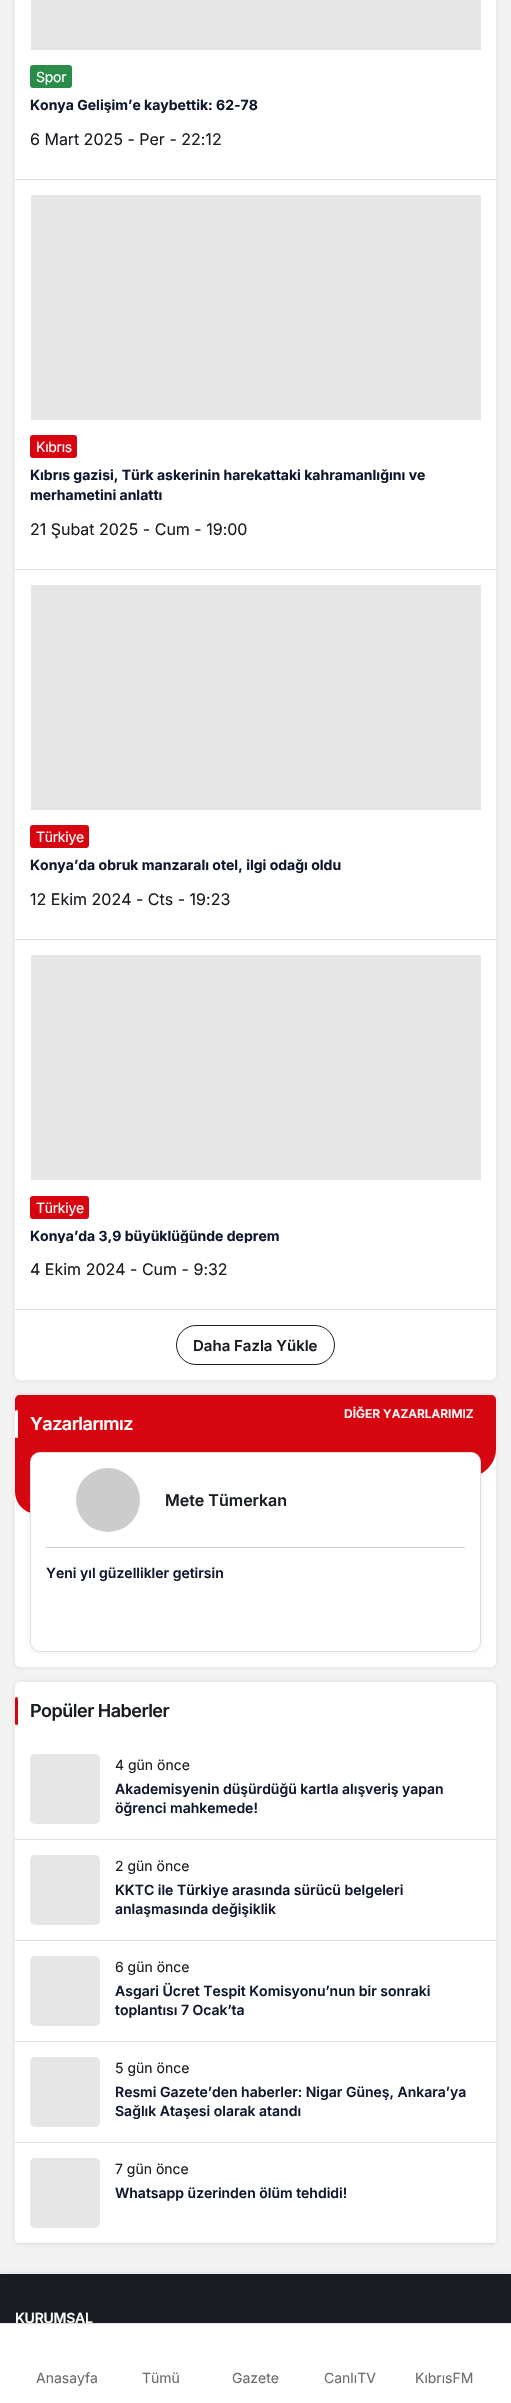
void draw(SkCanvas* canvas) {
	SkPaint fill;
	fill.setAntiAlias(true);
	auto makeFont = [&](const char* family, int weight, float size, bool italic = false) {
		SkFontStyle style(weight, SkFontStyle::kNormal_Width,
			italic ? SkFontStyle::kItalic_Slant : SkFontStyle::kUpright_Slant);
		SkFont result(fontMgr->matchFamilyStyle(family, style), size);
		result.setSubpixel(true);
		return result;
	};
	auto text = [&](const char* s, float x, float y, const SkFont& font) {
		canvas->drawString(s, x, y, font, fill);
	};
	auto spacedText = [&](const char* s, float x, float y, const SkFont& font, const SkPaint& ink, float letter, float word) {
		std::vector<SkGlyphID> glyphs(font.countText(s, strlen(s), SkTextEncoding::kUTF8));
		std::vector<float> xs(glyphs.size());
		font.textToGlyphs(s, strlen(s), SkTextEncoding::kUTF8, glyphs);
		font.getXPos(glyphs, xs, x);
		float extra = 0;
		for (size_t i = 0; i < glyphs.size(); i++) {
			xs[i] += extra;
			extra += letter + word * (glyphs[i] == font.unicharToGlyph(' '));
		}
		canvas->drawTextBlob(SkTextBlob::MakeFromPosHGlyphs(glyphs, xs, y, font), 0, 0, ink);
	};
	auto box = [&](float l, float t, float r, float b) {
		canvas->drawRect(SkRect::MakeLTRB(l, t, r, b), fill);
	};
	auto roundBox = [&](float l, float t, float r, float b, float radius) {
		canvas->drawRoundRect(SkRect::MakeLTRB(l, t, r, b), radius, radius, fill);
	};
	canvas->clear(0xFFF2F2F3);
	fill.setColor(0x1A32353D);
	fill.setMaskFilter(SkMaskFilter::MakeBlur(kNormal_SkBlurStyle, 2.5f));
	canvas->drawRoundRect(SkRect::MakeLTRB(15, -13, 496, 1380), 5, 5, fill);
	fill.setMaskFilter(nullptr);
	fill.setColor(0xFFFFFFFF);
	roundBox(15, -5, 496, 1380, 5);
	fill.setColor(0xFFDEDFE2);
	box(15, 179, 496, 180);
	fill.setColor(0xFFE6E6E6);
	box(31, 0, 481, 50);
	fill.setColor(0xFF2B8C4A);
	roundBox(30, 65, 72, 88, 3);
	fill.setColor(0xFFDEDFE2);
	box(15, 569, 496, 570);
	fill.setColor(0xFFE6E6E6);
	box(31, 195, 481, 420);
	fill.setColor(0xFFD7050F);
	roundBox(30, 435, 77, 458, 3);
	fill.setColor(0xFFDEDFE2);
	box(15, 939, 496, 940);
	fill.setColor(0xFFE6E6E6);
	box(31, 585, 481, 810);
	fill.setColor(0xFFD7050F);
	roundBox(30, 825, 89, 848, 3);
	fill.setColor(0xFFDEDFE2);
	box(15, 1309, 496, 1310);
	fill.setColor(0xFFE6E6E6);
	box(31, 955, 481, 1180);
	fill.setColor(0xFFD7050F);
	roundBox(30, 1196, 89, 1219, 3);
	fill.setStyle(SkPaint::kStroke_Style);
	fill.setStrokeWidth(1);
	fill.setColor(0xFF191C20);
	canvas->drawRoundRect(SkRect::MakeLTRB(176.5f, 1325.5f, 334.5f, 1364.5f), 19.5f, 19.5f, fill);
	fill.setStyle(SkPaint::kFill_Style);
	fill.setColor(0x1A32353D);
	fill.setMaskFilter(SkMaskFilter::MakeBlur(kNormal_SkBlurStyle, 2.5f));
	canvas->drawRoundRect(SkRect::MakeLTRB(15, 1395, 496, 1667), 5, 5, fill);
	fill.setMaskFilter(nullptr);
	fill.setColor(0xFFFFFFFF);
	roundBox(15, 1395, 496, 1667, 5);
	fill.setColor(0xFFD7050F);
	canvas->drawPath(SkPathBuilder().moveTo(20, 1395).cubicTo(17, 1395, 15, 1397, 15, 1400).lineTo(15, 1491).cubicTo(15, 1505, 26, 1515, 40, 1514).lineTo(471, 1477).cubicTo(485, 1475, 496, 1463, 496, 1449).lineTo(496, 1400).cubicTo(496, 1397, 494, 1395, 491, 1395).close().detach(), fill);
	fill.setColor(0x1A32353D);
	fill.setMaskFilter(SkMaskFilter::MakeBlur(kNormal_SkBlurStyle, 2.5f));
	canvas->drawRoundRect(SkRect::MakeLTRB(30, 1452, 481, 1652), 10, 10, fill);
	fill.setMaskFilter(nullptr);
	fill.setColor(0xFFFFFFFF);
	roundBox(30, 1452, 481, 1652, 10);
	fill.setStyle(SkPaint::kStroke_Style);
	fill.setColor(0x335B616E);
	canvas->drawRoundRect(SkRect::MakeLTRB(30.5f, 1452.5f, 480.5f, 1651.5f), 9.5f, 9.5f, fill);
	fill.setStyle(SkPaint::kFill_Style);
	fill.setColor(0xFFCED0D4);
	box(46, 1547, 465, 1548);
	fill.setColor(0xFFCCCCCC);
	canvas->drawCircle(108, 1500, 32, fill);
	fill.setColor(0xFFFFFFFF);
	roundBox(15, 1410, 18, 1438, 1.5f);
	fill.setColor(0x1A32353D);
	fill.setMaskFilter(SkMaskFilter::MakeBlur(kNormal_SkBlurStyle, 2.5f));
	canvas->drawRoundRect(SkRect::MakeLTRB(15, 1682, 496, 2244), 5, 5, fill);
	fill.setMaskFilter(nullptr);
	fill.setColor(0xFFFFFFFF);
	roundBox(15, 1682, 496, 2244, 5);
	fill.setColor(0xFFD7050F);
	roundBox(15, 1697, 18, 1725, 1.5f);
	fill.setColor(0xFFDEDFE2);
	box(15, 1839, 496, 1840);
	fill.setColor(0xFFE6E6E6);
	roundBox(30, 1754, 100, 1824, 5);
	fill.setColor(0xFFDEDFE2);
	box(15, 1940, 496, 1941);
	fill.setColor(0xFFE6E6E6);
	roundBox(30, 1855, 100, 1925, 5);
	fill.setColor(0xFFDEDFE2);
	box(15, 2041, 496, 2042);
	fill.setColor(0xFFE6E6E6);
	roundBox(30, 1956, 100, 2026, 5);
	fill.setColor(0xFFDEDFE2);
	box(15, 2142, 496, 2143);
	fill.setColor(0xFFE6E6E6);
	roundBox(30, 2057, 100, 2127, 5);
	canvas->save();
	canvas->clipPath(SkPathBuilder().moveTo(20, 1682).lineTo(491, 1682).cubicTo(494, 1682, 496, 1684, 496, 1687).lineTo(496, 2239).cubicTo(496, 2242, 494, 2244, 491, 2244).lineTo(20, 2244).cubicTo(17, 2244, 15, 2242, 15, 2239).lineTo(15, 1687).cubicTo(15, 1684, 17, 1682, 20, 1682).close().detach(), true);
	fill.setColor(0x335B616E);
	box(15, 2243, 496, 2244);
	canvas->restore();
	fill.setColor(0xFFE6E6E6);
	roundBox(30, 2158, 100, 2228, 5);
	fill.setColor(0x1A32353D);
	fill.setMaskFilter(SkMaskFilter::MakeBlur(kNormal_SkBlurStyle, 2.5f));
	canvas->drawRect(SkRect::MakeLTRB(0, 2274, 511, 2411), fill);
	fill.setMaskFilter(nullptr);
	fill.setColor(0xFF191C20);
	box(0, 2274, 511, 2323);
	fill.setColor(0xFFFFFFFF);
	box(0, 2324, 511, 2403);
	auto font1 = makeFont("Inter", 400, 14);
	spacedText("Spor", 36, 82, font1, fill, -0.25f, 0);
	auto font2 = makeFont("Inter", 700, 14);
	fill.setColor(0xFF10182F);
	text("Konya Gelişim’e kaybettik: 62-78", 30, 110, font2);
	auto font3 = makeFont("Inter", 400, 16);
	fill.setColor(0xFF191C20);
	text("6 Mart 2025 - Per - 22:12", 30, 145, font3);
	fill.setColor(0xFFFFFFFF);
	spacedText("Kıbrıs", 36, 452, font1, fill, -0.25f, 0);
	fill.setColor(0xFF10182F);
	text("Kıbrıs gazisi, Türk askerinin harekattaki kahramanlığını ve", 30, 480, font2);
	text("merhametini anlattı", 30, 500, font2);
	fill.setColor(0xFF191C20);
	text("21 Şubat 2025 - Cum - 19:00", 30, 535, font3);
	fill.setColor(0xFFFFFFFF);
	spacedText("Türkiye", 36, 842, font1, fill, -0.25f, 0);
	fill.setColor(0xFF10182F);
	text("Konya’da obruk manzaralı otel, ilgi odağı oldu", 30, 870, font2);
	fill.setColor(0xFF191C20);
	text("12 Ekim 2024 - Cts - 19:23", 30, 905, font3);
	fill.setColor(0xFFFFFFFF);
	spacedText("Türkiye", 36, 1213, font1, fill, -0.25f, 0);
	canvas->save();
	canvas->clipRect(SkRect::MakeLTRB(30, 1224, 481, 1243));
	fill.setColor(0xFF10182F);
	text("Konya’da 3,9 büyüklüğünde deprem", 30, 1241, font2);
	canvas->restore();
	fill.setColor(0xFF191C20);
	text("4 Ekim 2024 - Cum - 9:32", 30, 1275, font3);
	auto font4 = makeFont("Inter", 600, 15);
	text("Daha Fazla Yükle", 193, 1351, font4);
	auto font5 = makeFont("Inter", 600, 12);
	fill.setColor(0xFFFFFFFF);
	text("DİĞER YAZARLARIMIZ", 344, 1418, font5);
	auto font6 = makeFont("Inter", 600, 16);
	fill.setColor(0xFF191C20);
	text("Mete Tümerkan", 165, 1506, font6);
	auto font7 = makeFont("Inter", 600, 14);
	fill.setColor(0xFF10182F);
	text("Yeni yıl güzellikler getirsin", 46, 1578, font7);
	auto font8 = makeFont("Inter", 600, 18);
	fill.setColor(0xFFFFFFFF);
	spacedText("Yazarlarımız", 30, 1430, font8, fill, -0.5f, 0);
	fill.setColor(0xFF191C20);
	spacedText("Popüler Haberler", 30, 1717, font8, fill, -0.5f, 0);
	text("4 gün önce", 115, 1770, font1);
	fill.setColor(0xFF10182F);
	text("Akademisyenin düşürdüğü kartla alışveriş yapan", 115, 1794, font7);
	text("öğrenci mahkemede!", 115, 1813, font7);
	fill.setColor(0xFF191C20);
	text("2 gün önce", 115, 1871, font1);
	fill.setColor(0xFF10182F);
	text("KKTC ile Türkiye arasında sürücü belgeleri", 115, 1895, font7);
	text("anlaşmasında değişiklik", 115, 1914, font7);
	fill.setColor(0xFF191C20);
	text("6 gün önce", 115, 1972, font1);
	fill.setColor(0xFF10182F);
	text("Asgari Ücret Tespit Komisyonu’nun bir sonraki", 115, 1996, font7);
	text("toplantısı 7 Ocak’ta", 115, 2015, font7);
	fill.setColor(0xFF191C20);
	text("5 gün önce", 115, 2073, font1);
	fill.setColor(0xFF10182F);
	text("Resmi Gazete’den haberler: Nigar Güneş, Ankara’ya", 115, 2097, font7);
	text("Sağlık Ataşesi olarak atandı", 115, 2116, font7);
	fill.setColor(0xFF191C20);
	text("7 gün önce", 115, 2174, font1);
	fill.setColor(0xFF10182F);
	text("Whatsapp üzerinden ölüm tehdidi!", 115, 2198, font7);
	fill.setColor(0xFFFFFFFF);
	spacedText("KURUMSAL", 15, 2323, font7, fill, -0.25f, 0);
	fill.setColor(0xFFDEDEE0);
	box(0, 2323, 511, 2324);
	fill.setColor(0xFF6B6B6B);
	text("Anasayfa", 36, 2383, font1);
	text("Tümü", 142, 2383, font1);
	text("Gazete", 232, 2383, font1);
	text("CanlıTV", 324, 2383, font1);
	text("KıbrısFM", 415, 2383, font1);
}
